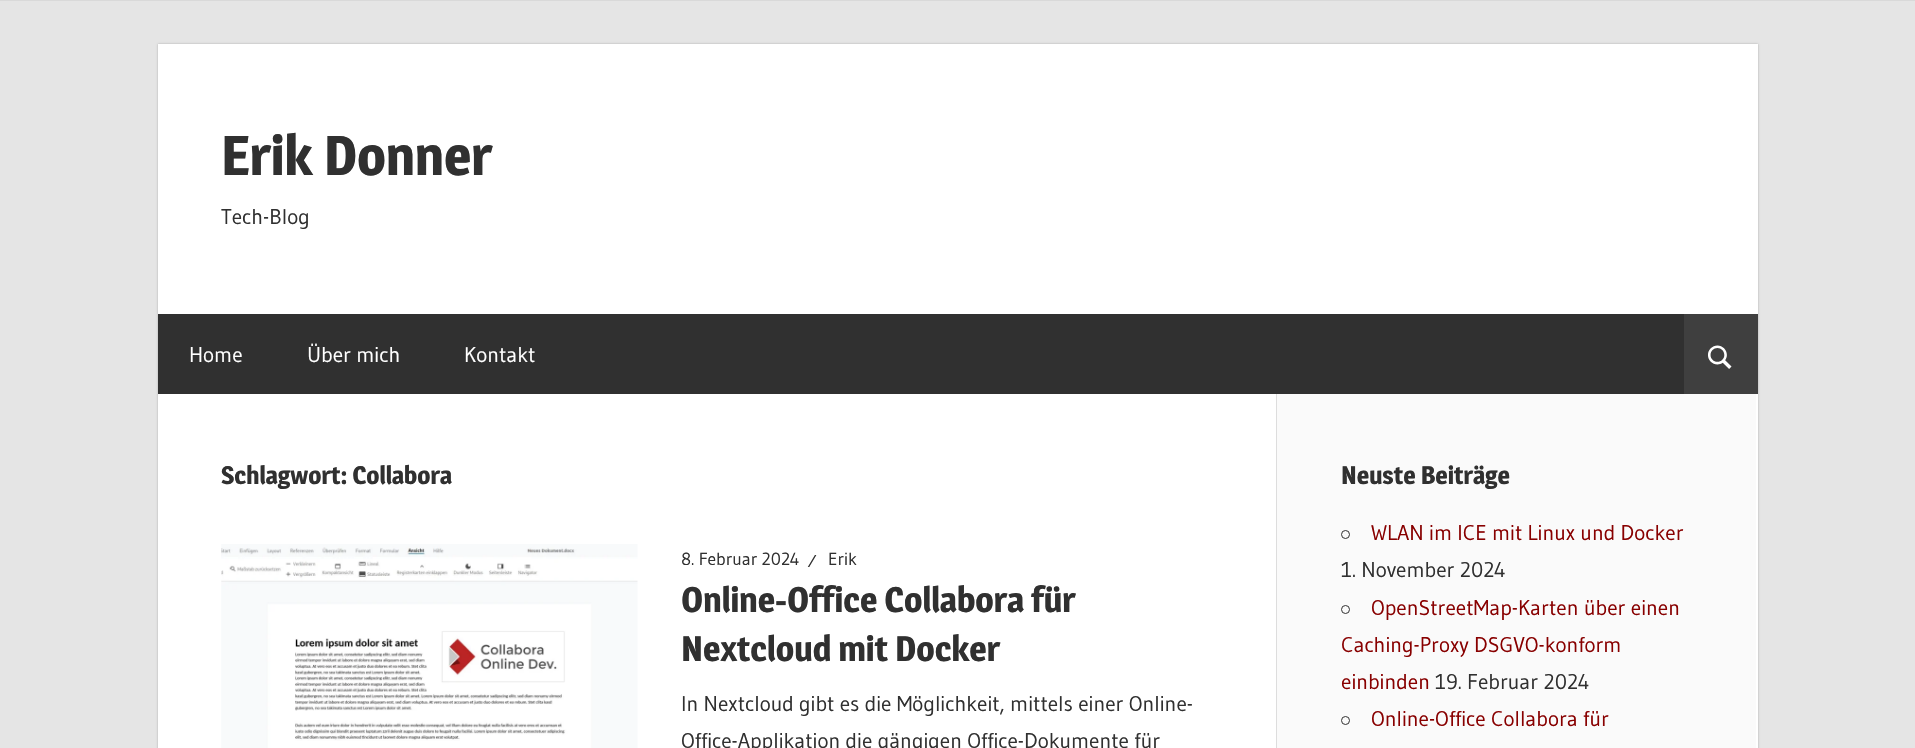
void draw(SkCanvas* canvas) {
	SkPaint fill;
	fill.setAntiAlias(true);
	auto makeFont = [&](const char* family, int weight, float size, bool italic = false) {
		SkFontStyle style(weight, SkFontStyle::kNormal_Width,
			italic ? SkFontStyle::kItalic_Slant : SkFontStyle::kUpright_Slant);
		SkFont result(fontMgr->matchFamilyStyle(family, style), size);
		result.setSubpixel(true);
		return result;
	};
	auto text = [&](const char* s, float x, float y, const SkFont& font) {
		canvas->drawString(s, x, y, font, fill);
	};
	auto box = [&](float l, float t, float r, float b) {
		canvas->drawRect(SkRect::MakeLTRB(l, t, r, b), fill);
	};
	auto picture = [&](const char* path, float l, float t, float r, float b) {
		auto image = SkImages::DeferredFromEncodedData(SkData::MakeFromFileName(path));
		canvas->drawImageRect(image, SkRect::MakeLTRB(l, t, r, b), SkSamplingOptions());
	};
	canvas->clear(0xFFE5E5E5);
	fill.setColor(0xFFD9D9D9);
	box(0, 0, 1915, 1);
	fill.setColor(0xFFAAAAAA);
	fill.setMaskFilter(SkMaskFilter::MakeBlur(kNormal_SkBlurStyle, 1));
	canvas->drawRect(SkRect::MakeLTRB(158, 44, 1758, 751), fill);
	fill.setMaskFilter(nullptr);
	fill.setColor(0xFFFFFFFF);
	box(158, 44, 1758, 748);
	fill.setColor(0xFF303030);
	box(158, 314, 1758, 394);
	fill.setColor(0x12FFFFFF);
	box(1684, 314, 1758, 394);
	picture("image0.png", 1708, 345, 1732, 369);
	picture("image1.png", 221, 544, 638, 748);
	fill.setColor(0xFFFAFAFA);
	box(1277, 394, 1756, 748);
	fill.setColor(0xFFDDDDDD);
	box(1276, 394, 1277, 748);
	fill.setStyle(SkPaint::kStroke_Style);
	fill.setStrokeWidth(1);
	fill.setColor(0xFF303030);
	canvas->drawCircle(1345.5f, 534.5f, 4, fill);
	canvas->drawCircle(1345.5f, 609.5f, 4, fill);
	canvas->drawCircle(1345.5f, 720.5f, 4, fill);
	auto font1 = makeFont("Magra", 700, 55);
	fill.setStyle(SkPaint::kFill_Style);
	text("Erik Donner", 221, 175, font1);
	auto font2 = makeFont("Gudea", 400, 21.25f);
	text("Tech-Blog", 221, 224, font2);
	fill.setColor(0xFFFFFFFF);
	text("Home", 189, 362, font2);
	text("Über mich", 307, 362, font2);
	text("Kontakt", 464, 362, font2);
	auto font3 = makeFont("Magra", 700, 25);
	fill.setColor(0xFF303030);
	text("Schlagwort: Collabora", 221, 484, font3);
	auto font4 = makeFont("Gudea", 400, 17.5f);
	text("8. Februar 2024", 681, 565, font4);
	text("⁄", 808, 567, font4);
	text("Erik", 828, 565, font4);
	auto font5 = makeFont("Magra", 700, 35);
	text("Online-Office Collabora für", 681, 612, font5);
	text("Nextcloud mit Docker", 681, 661, font5);
	text("In Nextcloud gibt es die Möglichkeit, mittels einer Online-", 681, 711, font2);
	text("Office-Applikation die gängigen Office-Dokumente für", 681, 748, font2);
	text("Neuste Beiträge", 1341, 484, font3);
	fill.setColor(0xFF880000);
	text("WLAN im ICE mit Linux und Docker", 1371, 540, font2);
	fill.setColor(0xFF303030);
	text("1. November 2024", 1341, 577, font2);
	fill.setColor(0xFF880000);
	text("OpenStreetMap-Karten über einen", 1371, 615, font2);
	text("Caching-Proxy DSGVO-konform", 1341, 652, font2);
	text("einbinden", 1341, 689, font2);
	fill.setColor(0xFF303030);
	text("19. Februar 2024", 1435, 689, font2);
	fill.setColor(0xFF880000);
	text("Online-Office Collabora für", 1371, 726, font2);
}
